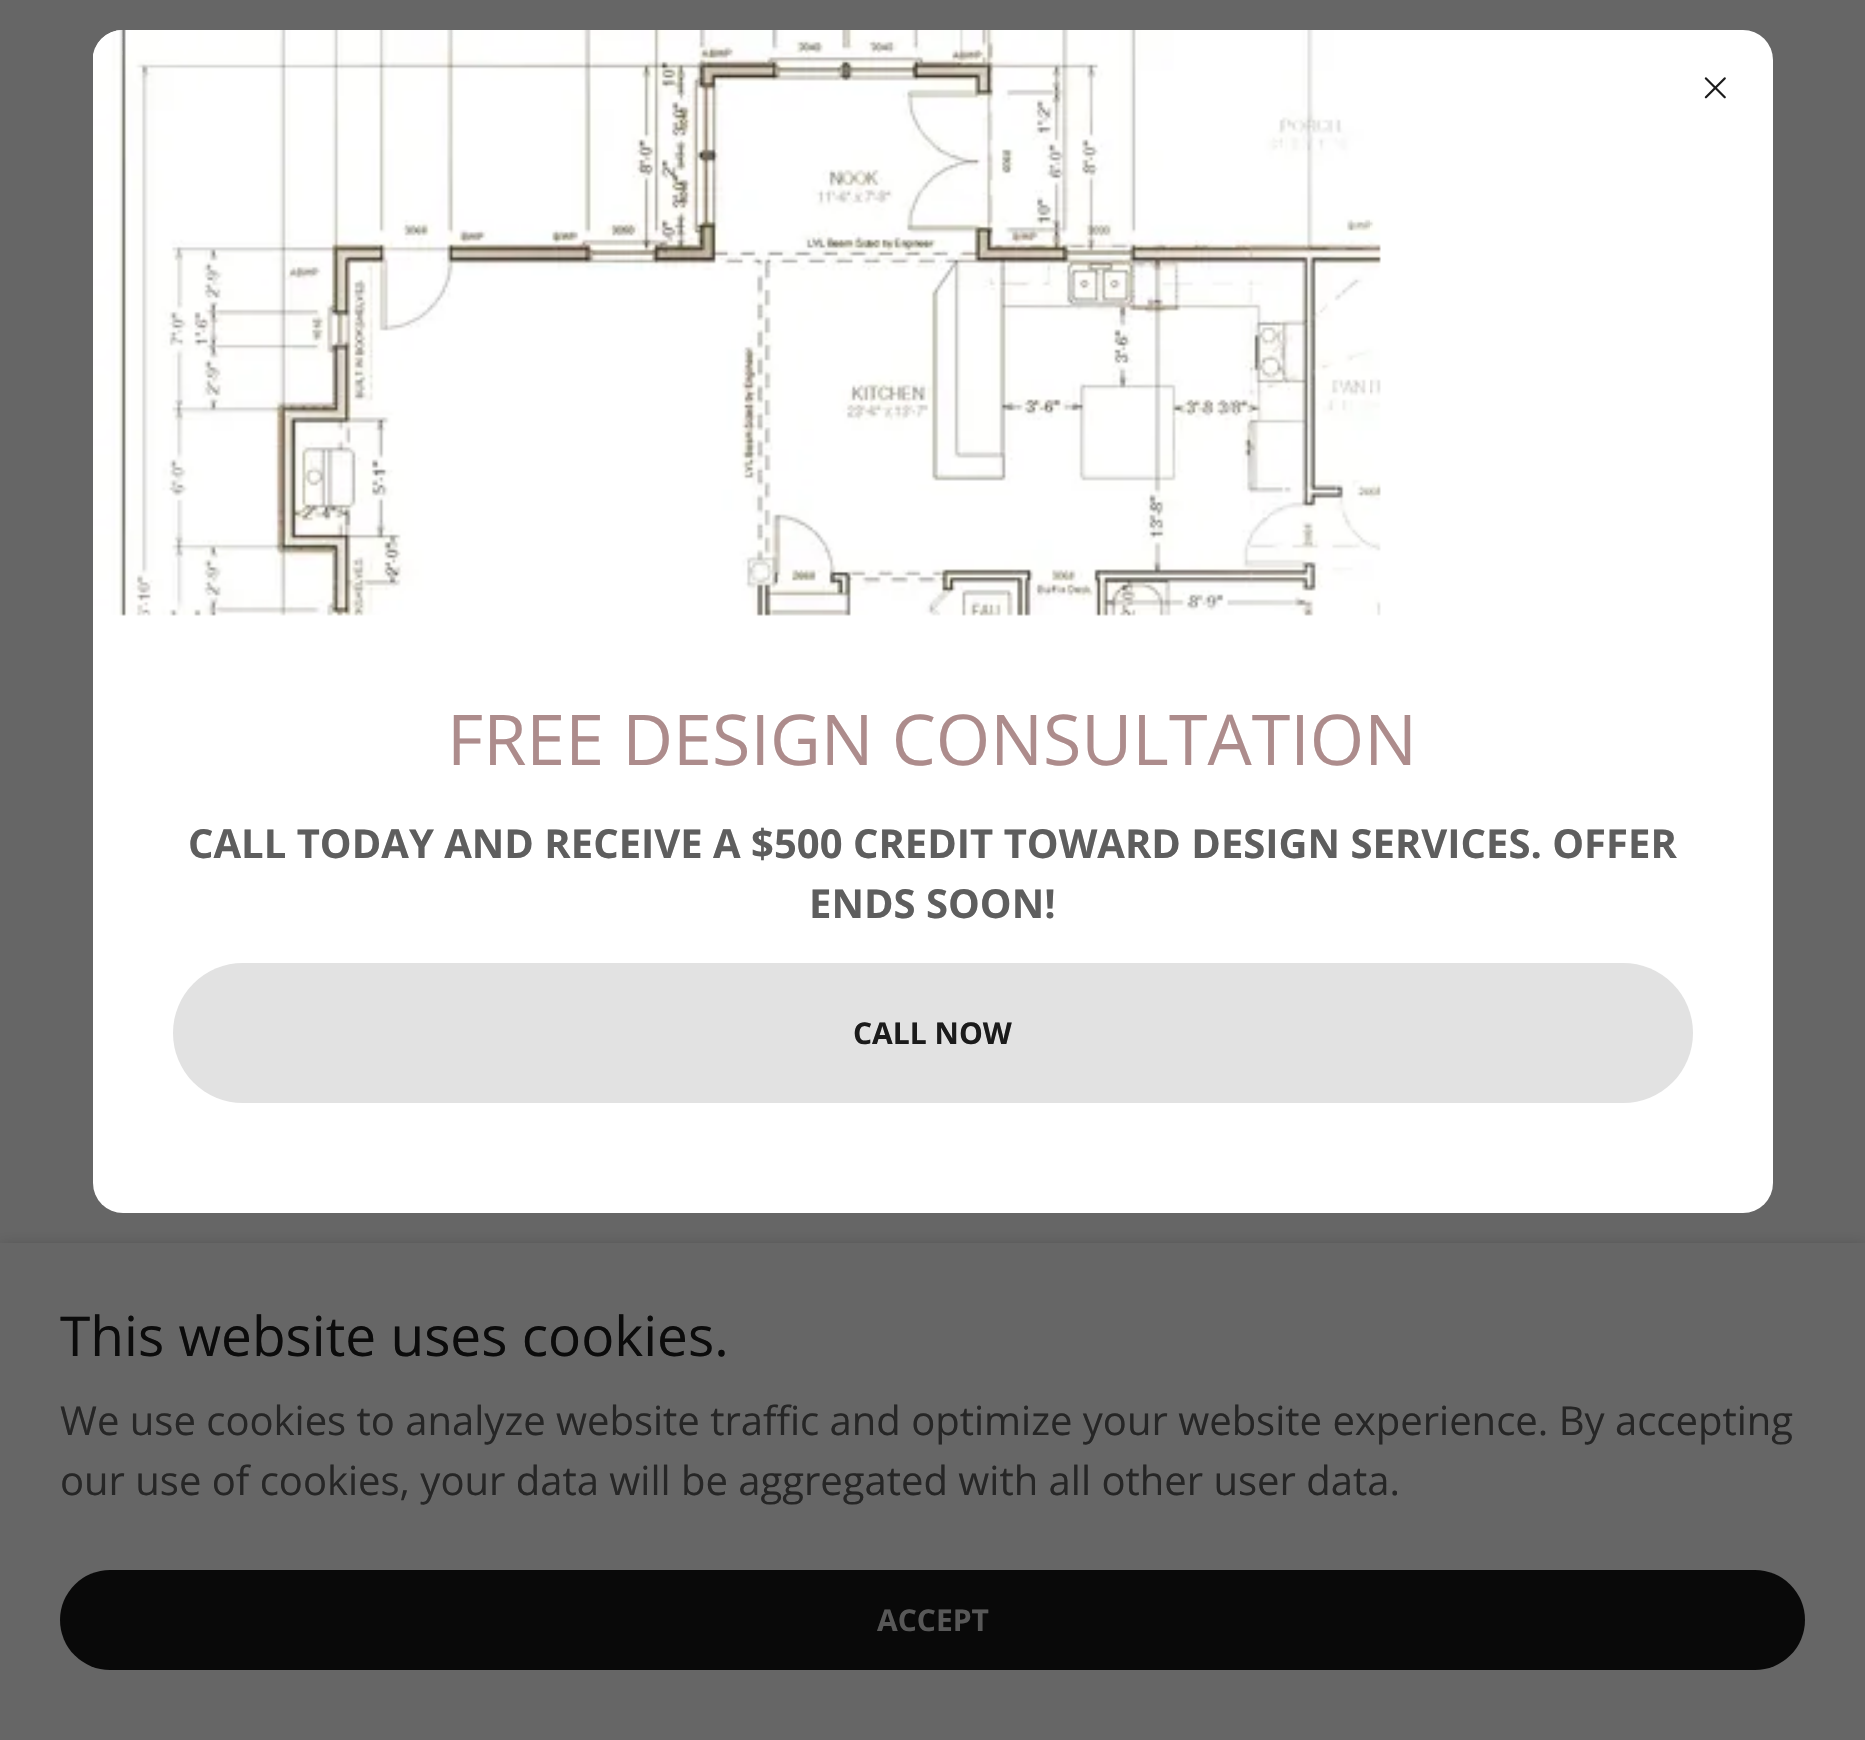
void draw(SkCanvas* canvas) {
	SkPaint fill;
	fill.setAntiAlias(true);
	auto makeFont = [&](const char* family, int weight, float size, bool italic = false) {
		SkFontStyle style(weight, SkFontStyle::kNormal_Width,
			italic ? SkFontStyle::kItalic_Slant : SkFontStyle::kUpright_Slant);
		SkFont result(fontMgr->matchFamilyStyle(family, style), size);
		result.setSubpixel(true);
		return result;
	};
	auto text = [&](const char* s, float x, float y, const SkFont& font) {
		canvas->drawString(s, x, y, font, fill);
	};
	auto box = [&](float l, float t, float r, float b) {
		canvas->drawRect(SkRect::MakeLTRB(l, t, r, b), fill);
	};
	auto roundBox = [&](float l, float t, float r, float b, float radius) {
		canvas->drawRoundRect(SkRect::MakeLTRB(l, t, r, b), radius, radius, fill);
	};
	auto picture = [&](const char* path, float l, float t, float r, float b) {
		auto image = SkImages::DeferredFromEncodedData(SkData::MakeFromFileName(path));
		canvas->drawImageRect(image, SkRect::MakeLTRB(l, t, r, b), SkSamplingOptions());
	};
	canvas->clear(0xFF666666);
	fill.setColor(0xFFFFFFFF);
	roundBox(93, 30, 1773, 1213, 30);
	picture("image0.png", 1704, 77, 1726, 99);
	picture("image1.png", 93, 30, 1381, 616);
	fill.setColor(0xFFE2E2E2);
	roundBox(173, 963, 1693, 1103, 70);
	fill.setColor(0x4D000000);
	fill.setMaskFilter(SkMaskFilter::MakeBlur(kNormal_SkBlurStyle, 7.5f));
	canvas->drawRect(SkRect::MakeLTRB(0, 1248, 1865, 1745), fill);
	fill.setMaskFilter(nullptr);
	fill.setColor(0xFF666666);
	box(0, 1243, 1865, 1740);
	fill.setColor(0xFF090909);
	roundBox(60, 1570, 1805, 1670, 50);
	auto font1 = makeFont("Open Sans", 400, 70);
	fill.setColor(0xFFAD8C8C);
	text("FREE DESIGN CONSULTATION", 447, 765, font1);
	auto font2 = makeFont("Open Sans", 700, 40);
	fill.setColor(0xFF5E5E5E);
	text("CALL TODAY AND RECEIVE A $500 CREDIT TOWARD DESIGN SERVICES. OFFER", 188, 858, font2);
	text("ENDS SOON!", 809, 918, font2);
	auto font3 = makeFont("Open Sans", 700, 30);
	fill.setColor(0xFF1B1B1B);
	text("CALL NOW", 853, 1044, font3);
	auto font4 = makeFont("Open Sans", 400, 55);
	fill.setColor(0xFF0B0B0B);
	text("This website uses cookies.", 60, 1356, font4);
	auto font5 = makeFont("Open Sans", 400, 40);
	fill.setColor(0xFF262626);
	text("We use cookies to analyze website traffic and optimize your website experience. By accepting", 60, 1435, font5);
	text("our use of cookies, your data will be aggregated with all other user data.", 60, 1495, font5);
	fill.setColor(0xFF585858);
	text("ACCEPT", 877, 1631, font3);
}
